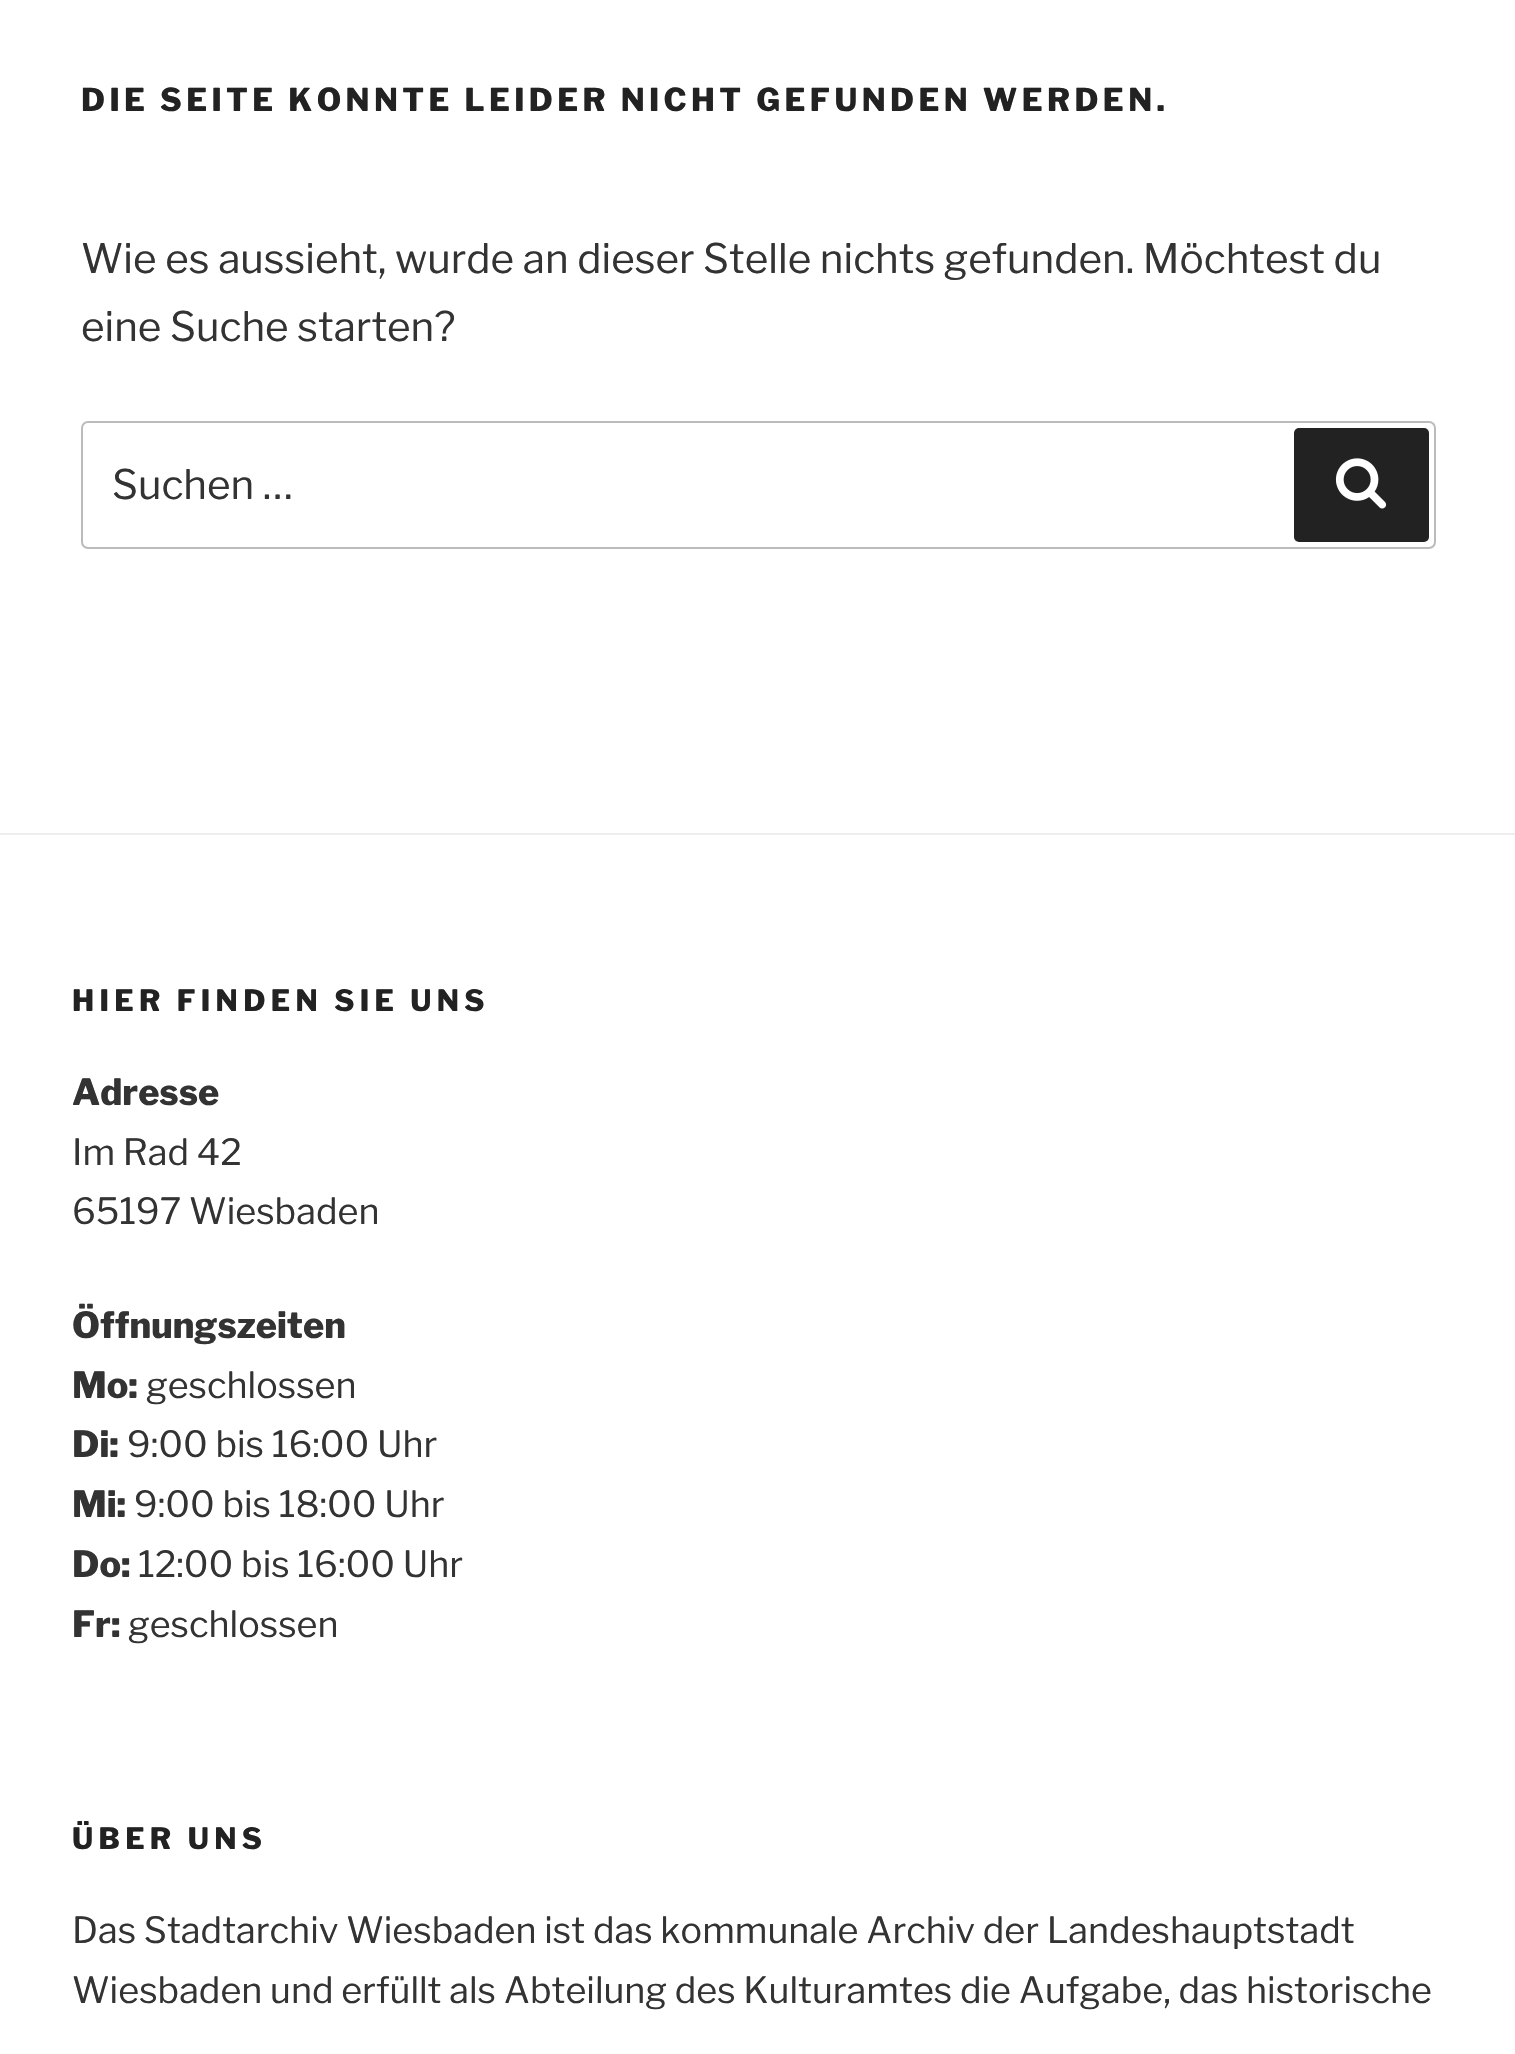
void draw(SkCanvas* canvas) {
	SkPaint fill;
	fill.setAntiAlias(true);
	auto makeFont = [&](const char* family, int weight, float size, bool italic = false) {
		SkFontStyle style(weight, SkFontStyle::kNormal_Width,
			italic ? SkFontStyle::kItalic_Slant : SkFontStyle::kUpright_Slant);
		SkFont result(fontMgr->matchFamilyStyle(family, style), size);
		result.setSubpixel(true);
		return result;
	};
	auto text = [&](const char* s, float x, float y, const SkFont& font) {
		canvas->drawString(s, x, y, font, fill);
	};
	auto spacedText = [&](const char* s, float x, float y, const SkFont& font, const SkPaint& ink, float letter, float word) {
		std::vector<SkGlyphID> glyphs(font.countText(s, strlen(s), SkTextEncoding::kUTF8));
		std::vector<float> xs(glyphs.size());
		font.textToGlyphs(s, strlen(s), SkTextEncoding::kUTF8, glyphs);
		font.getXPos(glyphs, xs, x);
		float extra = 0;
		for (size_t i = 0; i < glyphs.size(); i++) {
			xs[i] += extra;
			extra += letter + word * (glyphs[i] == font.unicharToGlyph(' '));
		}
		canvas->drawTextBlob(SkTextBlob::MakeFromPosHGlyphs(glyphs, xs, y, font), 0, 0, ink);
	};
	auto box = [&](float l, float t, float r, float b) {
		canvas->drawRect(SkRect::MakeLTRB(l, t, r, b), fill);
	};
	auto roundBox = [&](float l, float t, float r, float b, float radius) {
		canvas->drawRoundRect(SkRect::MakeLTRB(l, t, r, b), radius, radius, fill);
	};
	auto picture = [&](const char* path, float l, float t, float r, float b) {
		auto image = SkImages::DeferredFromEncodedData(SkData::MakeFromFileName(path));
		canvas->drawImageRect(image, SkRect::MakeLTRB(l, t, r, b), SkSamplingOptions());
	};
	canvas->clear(0xFFFFFFFF);
	fill.setStyle(SkPaint::kStroke_Style);
	fill.setStrokeWidth(2);
	fill.setColor(0xFFBBBBBB);
	canvas->drawRoundRect(SkRect::MakeLTRB(82, 422, 1435, 548), 6, 6, fill);
	fill.setStyle(SkPaint::kFill_Style);
	fill.setColor(0xFF222222);
	roundBox(1294, 428, 1429, 542, 5);
	picture("image0.png", 1335, 458, 1387, 509);
	fill.setColor(0xFFEEEEEE);
	box(0, 833, 1515, 835);
	auto font1 = makeFont("Libre Franklin", 100, 31.5f);
	fill.setColor(0xFF222222);
	spacedText("DIE SEITE KONNTE LEIDER NICHT GEFUNDEN WERDEN.", 81, 111, font1, fill, 4.4f, 0);
	auto font2 = makeFont("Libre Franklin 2", 100, 40.5f);
	fill.setColor(0xFF333333);
	text("Wie es aussieht, wurde an dieser Stelle nichts gefunden. Möchtest du", 81, 273, font2);
	text("eine Suche starten?", 81, 341, font2);
	text("Suchen …", 112, 499, font2);
	auto font3 = makeFont("Libre Franklin", 100, 29.25f);
	fill.setColor(0xFF222222);
	spacedText("HIER FINDEN SIE UNS", 72, 1011, font3, fill, 5.3f, 0);
	auto font4 = makeFont("Libre Franklin", 100, 36);
	fill.setColor(0xFF333333);
	text("Adresse", 72, 1105, font4);
	auto font5 = makeFont("Libre Franklin 2", 100, 36);
	text("Im Rad 42", 72, 1165, font5);
	text("65197 Wiesbaden", 72, 1224, font5);
	text("Öffnungszeiten", 72, 1338, font4);
	text("Mo:", 72, 1398, font4);
	text("geschlossen", 146, 1398, font5);
	text("Di:", 72, 1457, font4);
	text("9:00 bis 16:00 Uhr", 127, 1457, font5);
	text("Mi:", 72, 1517, font4);
	text("9:00 bis 18:00 Uhr", 134, 1517, font5);
	text("Do:", 72, 1577, font4);
	text("12:00 bis 16:00 Uhr", 138, 1577, font5);
	text("Fr:", 72, 1637, font4);
	text("geschlossen", 128, 1637, font5);
	fill.setColor(0xFF222222);
	spacedText("ÜBER UNS", 72, 1849, font3, fill, 5.3f, 0);
	fill.setColor(0xFF333333);
	text("Das Stadtarchiv Wiesbaden ist das kommunale Archiv der Landeshauptstadt", 72, 1943, font5);
	text("Wiesbaden und erfüllt als Abteilung des Kulturamtes die Aufgabe, das historische", 72, 2003, font5);
}
